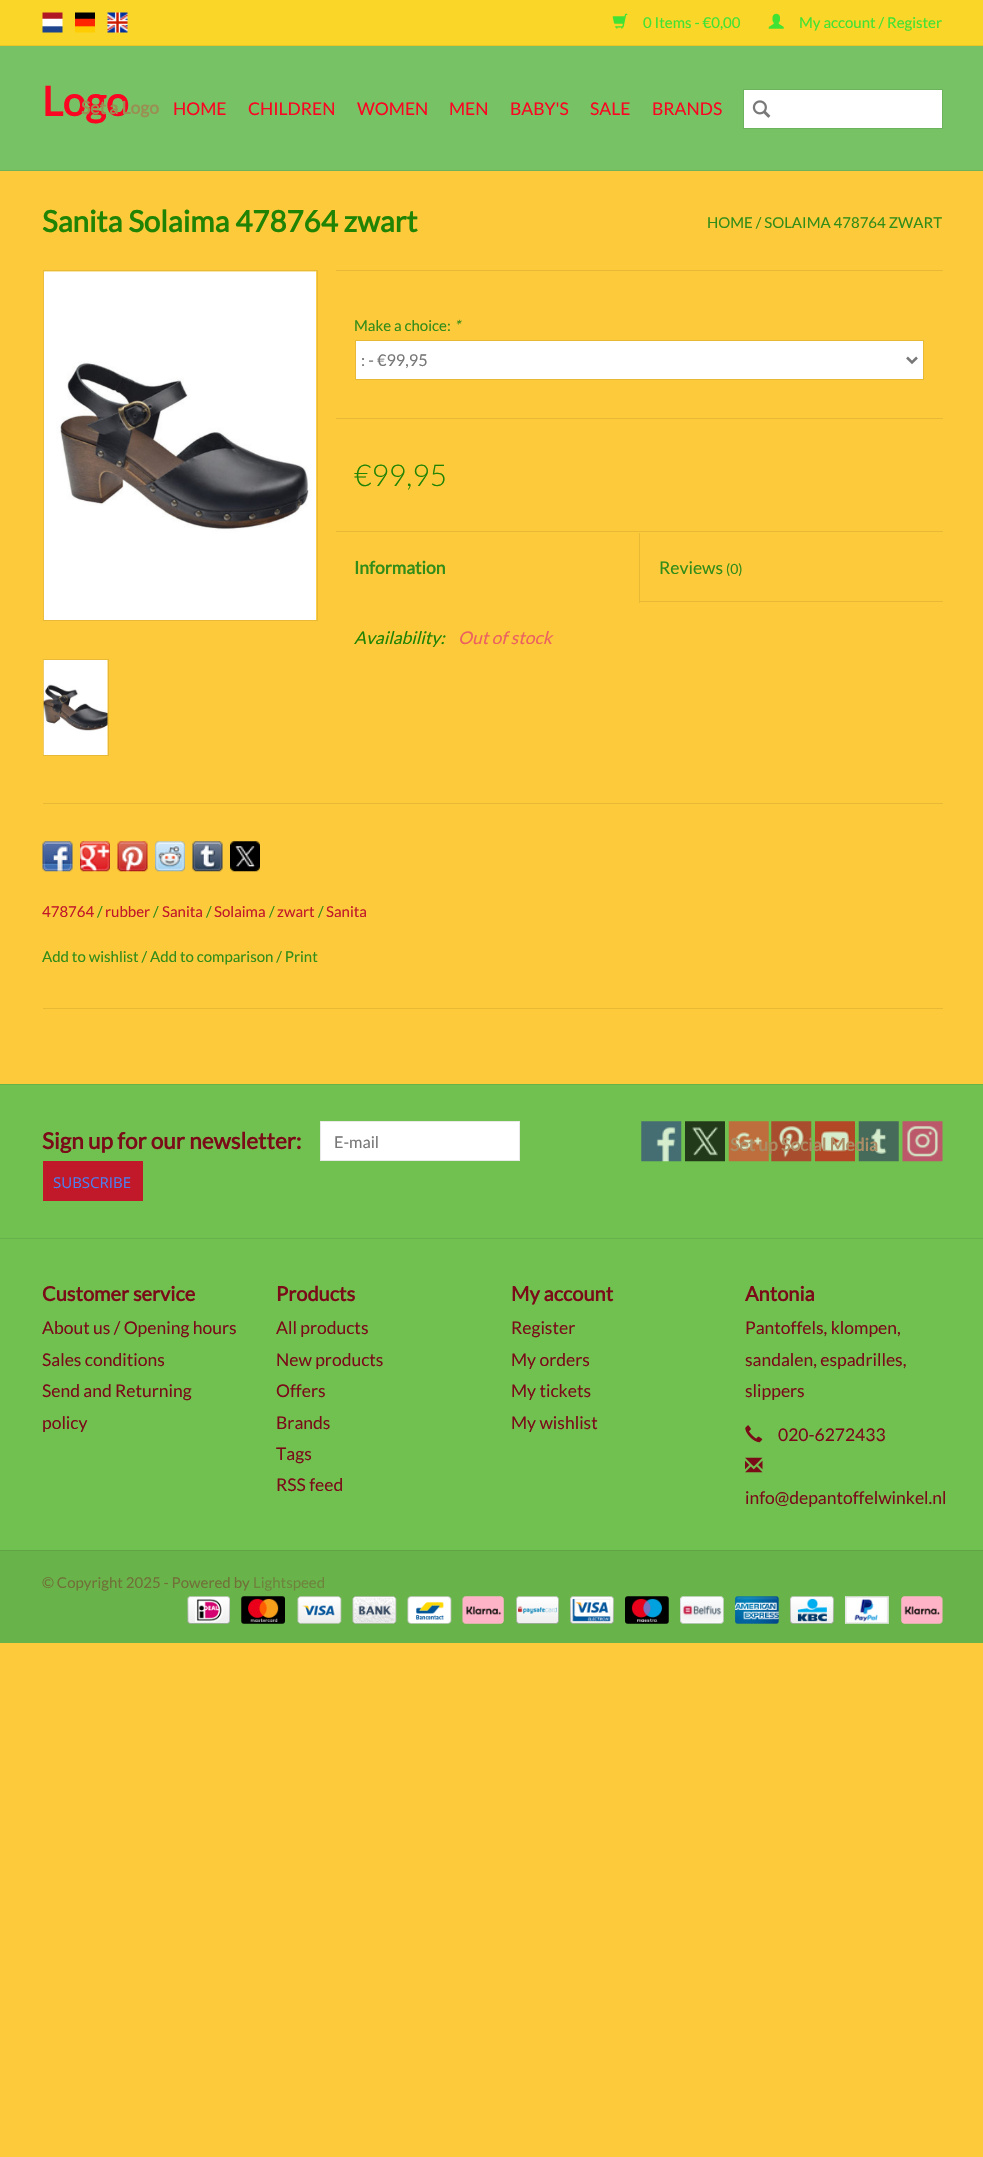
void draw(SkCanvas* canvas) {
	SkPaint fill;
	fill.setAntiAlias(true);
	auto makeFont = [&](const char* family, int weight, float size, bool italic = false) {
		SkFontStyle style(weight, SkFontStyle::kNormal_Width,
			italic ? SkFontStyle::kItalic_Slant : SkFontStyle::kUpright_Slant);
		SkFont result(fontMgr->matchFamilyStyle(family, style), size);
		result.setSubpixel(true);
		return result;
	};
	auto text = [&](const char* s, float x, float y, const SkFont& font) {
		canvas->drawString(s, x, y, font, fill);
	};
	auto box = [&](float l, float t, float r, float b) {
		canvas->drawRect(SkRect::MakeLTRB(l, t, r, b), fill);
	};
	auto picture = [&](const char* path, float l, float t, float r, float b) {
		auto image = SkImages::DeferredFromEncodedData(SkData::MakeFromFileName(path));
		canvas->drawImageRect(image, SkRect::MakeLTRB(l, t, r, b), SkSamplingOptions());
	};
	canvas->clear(0xFFFCCA3A);
	fill.setColor(0xFF77C265);
	box(0, 46, 983, 170);
	fill.setColor(0xFF6DB25C);
	box(0, 170, 983, 171);
	fill.setColor(0xFFFAD629);
	box(0, 0, 983, 45);
	fill.setColor(0xFFE8C726);
	box(0, 45, 983, 46);
	picture("image0.png", 42, 12, 63, 33);
	picture("image1.png", 75, 12, 95, 33);
	picture("image2.png", 107, 12, 128, 33);
	picture("image3.png", 612, 13, 628, 29);
	picture("image4.png", 768, 13, 784, 29);
	fill.setColor(0xFFFFFFFF);
	canvas->drawRect(SkRect::MakeLTRB(743.5f, 89.5f, 942.5f, 128.5f), fill);
	fill.setStyle(SkPaint::kStroke_Style);
	fill.setStrokeWidth(1);
	fill.setColor(0xFF6DB25C);
	canvas->drawRect(SkRect::MakeLTRB(743.5f, 89.5f, 942.5f, 128.5f), fill);
	picture("image5.png", 752, 100, 771, 118);
	fill.setColor(0xFFE7B935);
	canvas->drawRect(SkRect::MakeLTRB(43.5f, 270.5f, 317.5f, 620.5f), fill);
	fill.setStyle(SkPaint::kFill_Style);
	fill.setColor(0xFFF4C338);
	box(44, 271, 316, 272);
	picture("image6.png", 43, 271, 317, 620);
	fill.setStyle(SkPaint::kStroke_Style);
	fill.setColor(0xFFE7B935);
	canvas->drawRect(SkRect::MakeLTRB(43.5f, 659.5f, 108.5f, 755.5f), fill);
	fill.setStyle(SkPaint::kFill_Style);
	fill.setColor(0xFFF4C338);
	box(107, 660, 108, 755);
	picture("image7.png", 43, 660, 108, 755);
	fill.setColor(0xFFE7B935);
	box(336, 270, 943, 271);
	fill.setColor(0xFFFFFFFF);
	canvas->drawRect(SkRect::MakeLTRB(355.5f, 340.5f, 923.5f, 379.5f), fill);
	fill.setStyle(SkPaint::kStroke_Style);
	fill.setColor(0xFFE7B935);
	canvas->drawRect(SkRect::MakeLTRB(355.5f, 340.5f, 923.5f, 379.5f), fill);
	fill.setStrokeWidth(2.5f);
	fill.setColor(0xFF777777);
	canvas->drawPath(SkPathBuilder().moveTo(907, 357.5f).lineTo(912, 362.5f).lineTo(917, 357.5f).detach(), fill);
	fill.setStyle(SkPaint::kFill_Style);
	fill.setColor(0xFFE7B935);
	box(336, 418, 943, 419);
	box(336, 531, 943, 532);
	box(639, 601, 943, 602);
	box(639, 533, 640, 603);
	box(43, 803, 943, 804);
	box(43, 1008, 943, 1009);
	picture("image8.png", 42, 841, 73, 872);
	picture("image9.png", 80, 841, 110, 872);
	picture("image10.png", 117, 841, 148, 872);
	picture("image11.png", 155, 841, 185, 872);
	picture("image12.png", 192, 841, 223, 872);
	picture("image13.png", 230, 841, 260, 872);
	fill.setColor(0xFF71C151);
	box(0, 1085, 983, 1550);
	fill.setColor(0xFF67B14A);
	box(0, 1084, 983, 1085);
	fill.setColor(0xFFFFFFFF);
	canvas->drawRect(SkRect::MakeLTRB(320.5f, 1121.5f, 519.5f, 1160.5f), fill);
	fill.setStyle(SkPaint::kStroke_Style);
	fill.setStrokeWidth(1);
	fill.setColor(0xFFE9E9E9);
	canvas->drawRect(SkRect::MakeLTRB(320.5f, 1121.5f, 519.5f, 1160.5f), fill);
	fill.setStyle(SkPaint::kFill_Style);
	fill.setColor(0xFFC1182A);
	box(43, 1161, 143, 1201);
	picture("image14.png", 641, 1121, 682, 1162);
	picture("image15.png", 685, 1121, 725, 1162);
	picture("image16.png", 728, 1121, 769, 1162);
	picture("image17.png", 771, 1121, 812, 1162);
	picture("image18.png", 815, 1121, 855, 1162);
	picture("image19.png", 858, 1121, 899, 1162);
	picture("image20.png", 902, 1121, 943, 1162);
	fill.setColor(0xFF67B14A);
	box(0, 1238, 983, 1239);
	picture("image21.png", 745, 1425, 763, 1443);
	picture("image22.png", 745, 1457, 763, 1473);
	fill.setColor(0xFF60A445);
	box(0, 1550, 983, 1551);
	fill.setColor(0xFF69B34B);
	box(0, 1551, 983, 1643);
	picture("image23.png", 187, 1596, 230, 1624);
	picture("image24.png", 241, 1596, 285, 1624);
	picture("image25.png", 297, 1596, 342, 1624);
	picture("image26.png", 352, 1596, 397, 1624);
	picture("image27.png", 407, 1596, 452, 1624);
	picture("image28.png", 462, 1596, 504, 1624);
	picture("image29.png", 516, 1596, 559, 1624);
	picture("image30.png", 570, 1596, 614, 1624);
	picture("image31.png", 625, 1596, 669, 1624);
	picture("image32.png", 680, 1596, 724, 1624);
	picture("image33.png", 735, 1596, 779, 1624);
	picture("image34.png", 790, 1596, 834, 1624);
	picture("image35.png", 845, 1596, 889, 1624);
	picture("image36.png", 901, 1596, 943, 1624);
	auto font1 = makeFont("Lato", 400, 15);
	fill.setColor(0xFF40E233);
	text("0 Items - €0,00", 643, 28, font1);
	text("My account / Register", 799, 28, font1);
	auto font2 = makeFont("Lato", 700, 40.5f);
	fill.setColor(0xFFFA0522);
	text("Logo", 42, 116, font2);
	auto font3 = makeFont("Lato", 700, 17.5f);
	fill.setColor(0xFF9A8F53);
	text("Set a Logo", 81, 114, font3);
	auto font4 = makeFont("Lato", 400, 17.5f);
	fill.setColor(0xFFFA0522);
	text("HOME", 173, 115, font4);
	text("CHILDREN", 248, 115, font4);
	text("WOMEN", 357, 115, font4);
	text("MEN", 449, 115, font4);
	text("BABY'S", 510, 115, font4);
	text("SALE", 590, 115, font4);
	text("BRANDS", 652, 115, font4);
	auto font5 = makeFont("Lato", 700, 29.5f);
	fill.setColor(0xFF208304);
	text("Sanita Solaima 478764 zwart", 42, 232, font5);
	fill.setColor(0xFF318C18);
	text("HOME / SOLAIMA 478764 ZWART", 707, 228, font1);
	text("Make a choice:", 354, 331, font1);
	auto font6 = makeFont("Lato", 400, 15, true);
	text("*", 454, 331, font6);
	auto font7 = makeFont("Lato", 400, 16.25f);
	fill.setColor(0xFF777777);
	text(": - €99,95", 361, 366, font7);
	auto font8 = makeFont("Lato", 300, 30);
	fill.setColor(0xFF208304);
	text("€99,95", 354, 486, font8);
	fill.setColor(0xFF318C18);
	text("Information", 354, 574, font3);
	text("Reviews", 659, 574, font4);
	auto font9 = makeFont("Lato", 400, 14);
	text("(0)", 726, 574, font9);
	auto font10 = makeFont("Lato", 400, 17.5f, true);
	fill.setColor(0xFF208304);
	text("Availability:", 354, 644, font10);
	fill.setColor(0xFFEB6161);
	text("Out of stock", 458, 644, font10);
	fill.setColor(0xFFC1182A);
	text("478764", 42, 917, font1);
	fill.setColor(0xFF318C18);
	text("/", 97, 917, font1);
	fill.setColor(0xFFC1182A);
	text("rubber", 105, 917, font1);
	fill.setColor(0xFF318C18);
	text("/", 153, 917, font1);
	fill.setColor(0xFFC1182A);
	text("Sanita", 162, 917, font1);
	fill.setColor(0xFF318C18);
	text("/", 206, 917, font1);
	fill.setColor(0xFFC1182A);
	text("Solaima", 214, 917, font1);
	fill.setColor(0xFF318C18);
	text("/", 269, 917, font1);
	fill.setColor(0xFFC1182A);
	text("zwart", 277, 917, font1);
	fill.setColor(0xFF318C18);
	text("/", 318, 917, font1);
	fill.setColor(0xFFC1182A);
	text("Sanita", 326, 917, font1);
	fill.setColor(0xFF318C18);
	text("Add to wishlist / Add to comparison / Print", 42, 962, font1);
	auto font11 = makeFont("Lato", 700, 22.5f);
	fill.setColor(0xFF7A0C18);
	text("Sign up for our newsletter:", 42, 1149, font11);
	fill.setColor(0xFF777777);
	text("E-mail", 334, 1148, font7);
	auto font12 = makeFont("Open Sans", 400, 15);
	fill.setColor(0xFF4A81F1);
	text("SUBSCRIBE", 53, 1188, font12);
	fill.setColor(0xFFAB8E65);
	text("Set up Social Media", 730, 1151, font3);
	auto font13 = makeFont("Lato", 700, 20);
	fill.setColor(0xFF7A0C18);
	text("Customer service", 42, 1301, font13);
	text("About us / Opening hours", 42, 1334, font4);
	text("Sales conditions", 42, 1366, font4);
	text("Send and Returning", 42, 1397, font4);
	text("policy", 42, 1429, font4);
	text("Products", 276, 1301, font13);
	text("All products", 276, 1334, font4);
	text("New products", 276, 1366, font4);
	text("Offers", 276, 1397, font4);
	text("Brands", 276, 1429, font4);
	text("Tags", 276, 1460, font4);
	text("RSS feed", 276, 1491, font4);
	text("My account", 511, 1301, font13);
	text("Register", 511, 1334, font4);
	text("My orders", 511, 1366, font4);
	text("My tickets", 511, 1397, font4);
	text("My wishlist", 511, 1429, font4);
	text("Antonia", 745, 1301, font13);
	text("Pantoffels, klompen,", 745, 1334, font4);
	text("sandalen, espadrilles,", 745, 1366, font4);
	text("slippers", 745, 1397, font4);
	text("020-6272433", 778, 1441, font4);
	text("info@depantoffelwinkel.nl", 745, 1504, font4);
	fill.setColor(0xFF707037);
	text("© Copyright 2025 - Powered by", 42, 1588, font1);
	fill.setColor(0xFF6E843D);
	text("Lightspeed", 253, 1588, font1);
}
